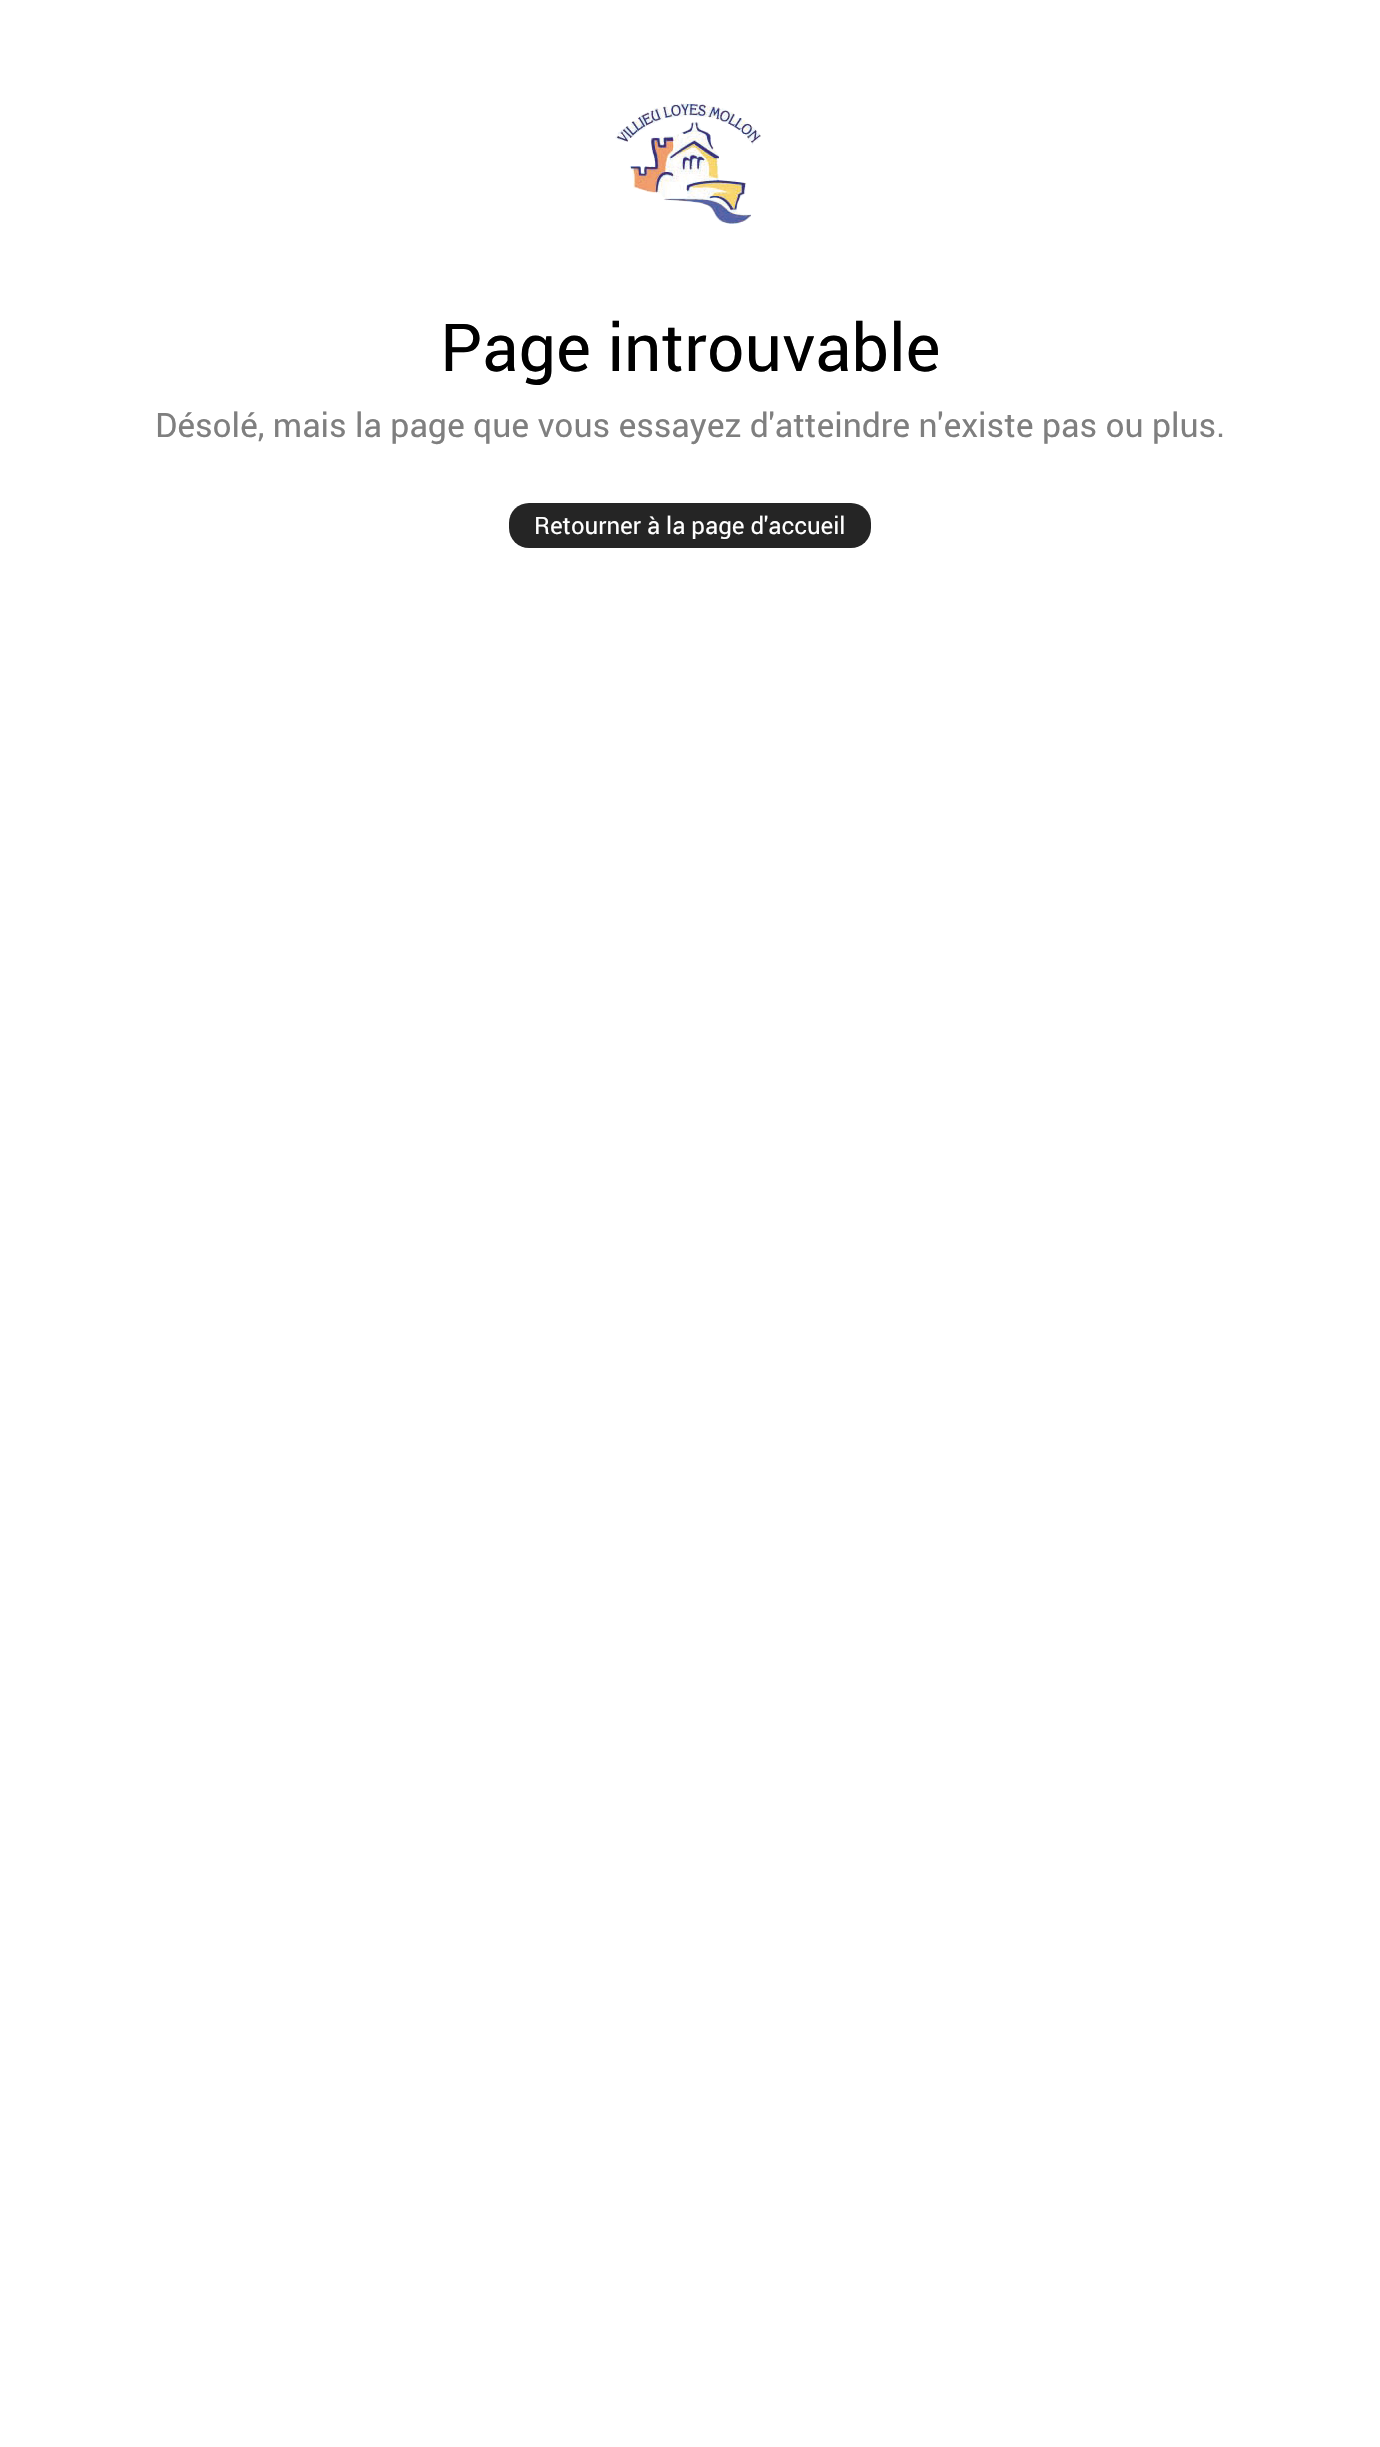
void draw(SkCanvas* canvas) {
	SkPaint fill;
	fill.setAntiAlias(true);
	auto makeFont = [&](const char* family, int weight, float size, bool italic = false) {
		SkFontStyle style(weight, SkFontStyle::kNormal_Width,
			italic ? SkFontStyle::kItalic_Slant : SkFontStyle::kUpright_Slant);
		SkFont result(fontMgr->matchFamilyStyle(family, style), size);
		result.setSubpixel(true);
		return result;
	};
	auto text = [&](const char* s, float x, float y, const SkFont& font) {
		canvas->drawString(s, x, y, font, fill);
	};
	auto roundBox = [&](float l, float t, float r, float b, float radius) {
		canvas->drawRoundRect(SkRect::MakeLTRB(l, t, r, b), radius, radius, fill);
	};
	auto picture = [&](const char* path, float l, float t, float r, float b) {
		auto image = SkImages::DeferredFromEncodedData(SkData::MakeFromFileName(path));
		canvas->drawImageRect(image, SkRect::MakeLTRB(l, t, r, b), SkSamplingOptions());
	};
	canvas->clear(0xFFFFFFFF);
	picture("image0.png", 615, 102, 761, 224);
	fill.setColor(0xFF252525);
	roundBox(509, 503, 871, 548, 20);
	auto font1 = makeFont("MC", 400, 66);
	fill.setColor(0xFF000000);
	text("Page introuvable", 440, 371, font1);
	auto font2 = makeFont("MC", 400, 33.6f);
	fill.setColor(0xFF7F7F7F);
	text("Désolé, mais la page que vous essayez d'atteindre n'existe pas ou plus.", 155, 437, font2);
	auto font3 = makeFont("MC", 400, 24);
	fill.setColor(0xFFFFFFFF);
	text("Retourner à la page d'accueil", 534, 534, font3);
}
